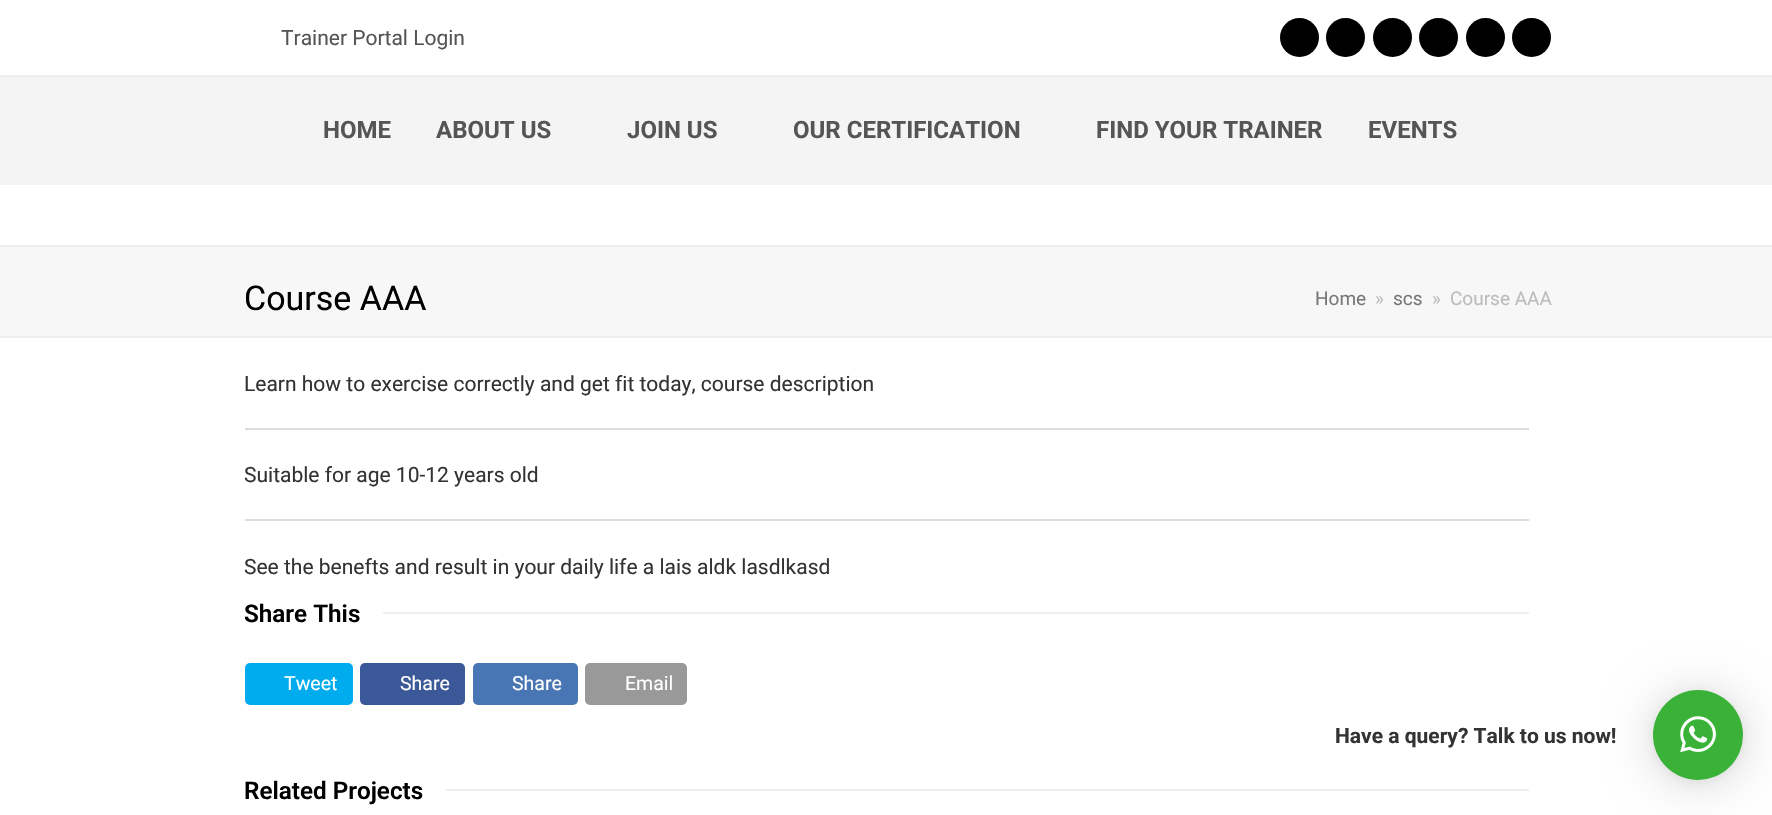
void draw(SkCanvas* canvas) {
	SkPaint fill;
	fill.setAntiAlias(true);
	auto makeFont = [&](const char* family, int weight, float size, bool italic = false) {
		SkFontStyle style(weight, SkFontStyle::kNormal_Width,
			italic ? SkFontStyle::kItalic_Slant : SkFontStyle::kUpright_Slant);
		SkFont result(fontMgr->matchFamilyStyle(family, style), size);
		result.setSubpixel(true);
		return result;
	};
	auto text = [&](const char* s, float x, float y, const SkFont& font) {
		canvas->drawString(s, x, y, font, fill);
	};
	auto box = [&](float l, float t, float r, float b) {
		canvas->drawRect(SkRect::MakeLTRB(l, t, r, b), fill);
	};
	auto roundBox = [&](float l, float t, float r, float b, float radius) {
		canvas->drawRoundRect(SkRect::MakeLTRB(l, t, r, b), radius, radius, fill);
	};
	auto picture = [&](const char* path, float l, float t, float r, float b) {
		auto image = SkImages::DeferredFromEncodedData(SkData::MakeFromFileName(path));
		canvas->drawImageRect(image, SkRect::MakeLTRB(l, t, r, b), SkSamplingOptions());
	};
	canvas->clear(0xFFFFFFFF);
	fill.setColor(0xFFEEEEEE);
	box(0, 75, 1772, 77);
	fill.setColor(0xFF000000);
	canvas->drawCircle(1299.5f, 37.5f, 19.5f, fill);
	canvas->drawCircle(1345.5f, 37.5f, 19.5f, fill);
	canvas->drawCircle(1392.5f, 37.5f, 19.5f, fill);
	canvas->drawCircle(1438.5f, 37.5f, 19.5f, fill);
	canvas->drawCircle(1485.5f, 37.5f, 19.5f, fill);
	canvas->drawCircle(1531.5f, 37.5f, 19.5f, fill);
	fill.setColor(0xFFF4F4F4);
	box(0, 77, 1772, 185);
	fill.setColor(0xFFF7F7F7);
	box(0, 247, 1772, 336);
	fill.setColor(0xFFEEEEEE);
	box(0, 245, 1772, 247);
	box(0, 336, 1772, 338);
	fill.setColor(0xFFDDDDDD);
	box(245, 428, 1529, 430);
	box(245, 519, 1529, 521);
	fill.setColor(0xFFEEEEEE);
	box(383, 612, 1529, 614);
	fill.setColor(0xFF00ACED);
	roundBox(245, 663, 353, 705, 5);
	fill.setColor(0xFF3B5998);
	roundBox(360, 663, 465, 705, 5);
	fill.setColor(0xFF4875B4);
	roundBox(473, 663, 578, 705, 5);
	fill.setColor(0xFF999999);
	roundBox(585, 663, 687, 705, 5);
	fill.setColor(0xFFEEEEEE);
	box(446, 789, 1529, 791);
	fill.setColor(0x29000000);
	fill.setMaskFilter(SkMaskFilter::MakeBlur(kNormal_SkBlurStyle, 24));
	canvas->drawRoundRect(SkRect::MakeLTRB(1653, 693, 1743, 783), 45, 45, fill);
	fill.setMaskFilter(nullptr);
	fill.setColor(0x0F000000);
	fill.setMaskFilter(SkMaskFilter::MakeBlur(kNormal_SkBlurStyle, 4.5f));
	canvas->drawRoundRect(SkRect::MakeLTRB(1653, 692, 1743, 782), 45, 45, fill);
	fill.setMaskFilter(nullptr);
	fill.setColor(0xFF39B237);
	canvas->drawCircle(1698, 735, 45, fill);
	picture("image0.png", 1680, 716, 1716, 753);
	auto font1 = makeFont("Roboto", 400, 21);
	fill.setColor(0xFF555555);
	text("Trainer Portal Login", 281, 45, font1);
	auto font2 = makeFont("Roboto", 700, 24);
	text("HOME", 323, 138, font2);
	text("ABOUT US", 436, 138, font2);
	text("JOIN US", 627, 138, font2);
	text("OUR CERTIFICATION", 793, 138, font2);
	text("FIND YOUR TRAINER", 1096, 138, font2);
	text("EVENTS", 1368, 138, font2);
	auto font3 = makeFont("Roboto", 400, 34);
	fill.setColor(0xFF000000);
	text("Course AAA", 244, 310, font3);
	auto font4 = makeFont("Roboto", 400, 19);
	fill.setColor(0xFF777777);
	text("Home", 1315, 305, font4);
	fill.setColor(0xFFBCBCBC);
	text("»", 1375, 305, font4);
	fill.setColor(0xFF777777);
	text("scs", 1393, 305, font4);
	fill.setColor(0xFFBCBCBC);
	text("»", 1432, 305, font4);
	text("Course AAA", 1450, 305, font4);
	fill.setColor(0xFF333333);
	text("Learn how to exercise correctly and get fit today, course description", 244, 391, font1);
	text("Suitable for age 10-12 years old", 244, 482, font1);
	text("See the benefts and result in your daily life a lais aldk lasdlkasd", 244, 574, font1);
	auto font5 = makeFont("Roboto", 600, 24.25f);
	fill.setColor(0xFF000000);
	text("Share This", 244, 622, font5);
	auto font6 = makeFont("Roboto", 400, 19.5f);
	fill.setColor(0xFFFFFFFF);
	text("Tweet", 284, 690, font6);
	text("Share", 400, 690, font6);
	text("Share", 512, 690, font6);
	text("Email", 625, 690, font6);
	fill.setColor(0xFF000000);
	text("Related Projects", 244, 799, font5);
	auto font7 = makeFont("Roboto", 700, 21);
	fill.setColor(0xFF333333);
	text("Have a query? Talk to us now!", 1335, 743, font7);
}
